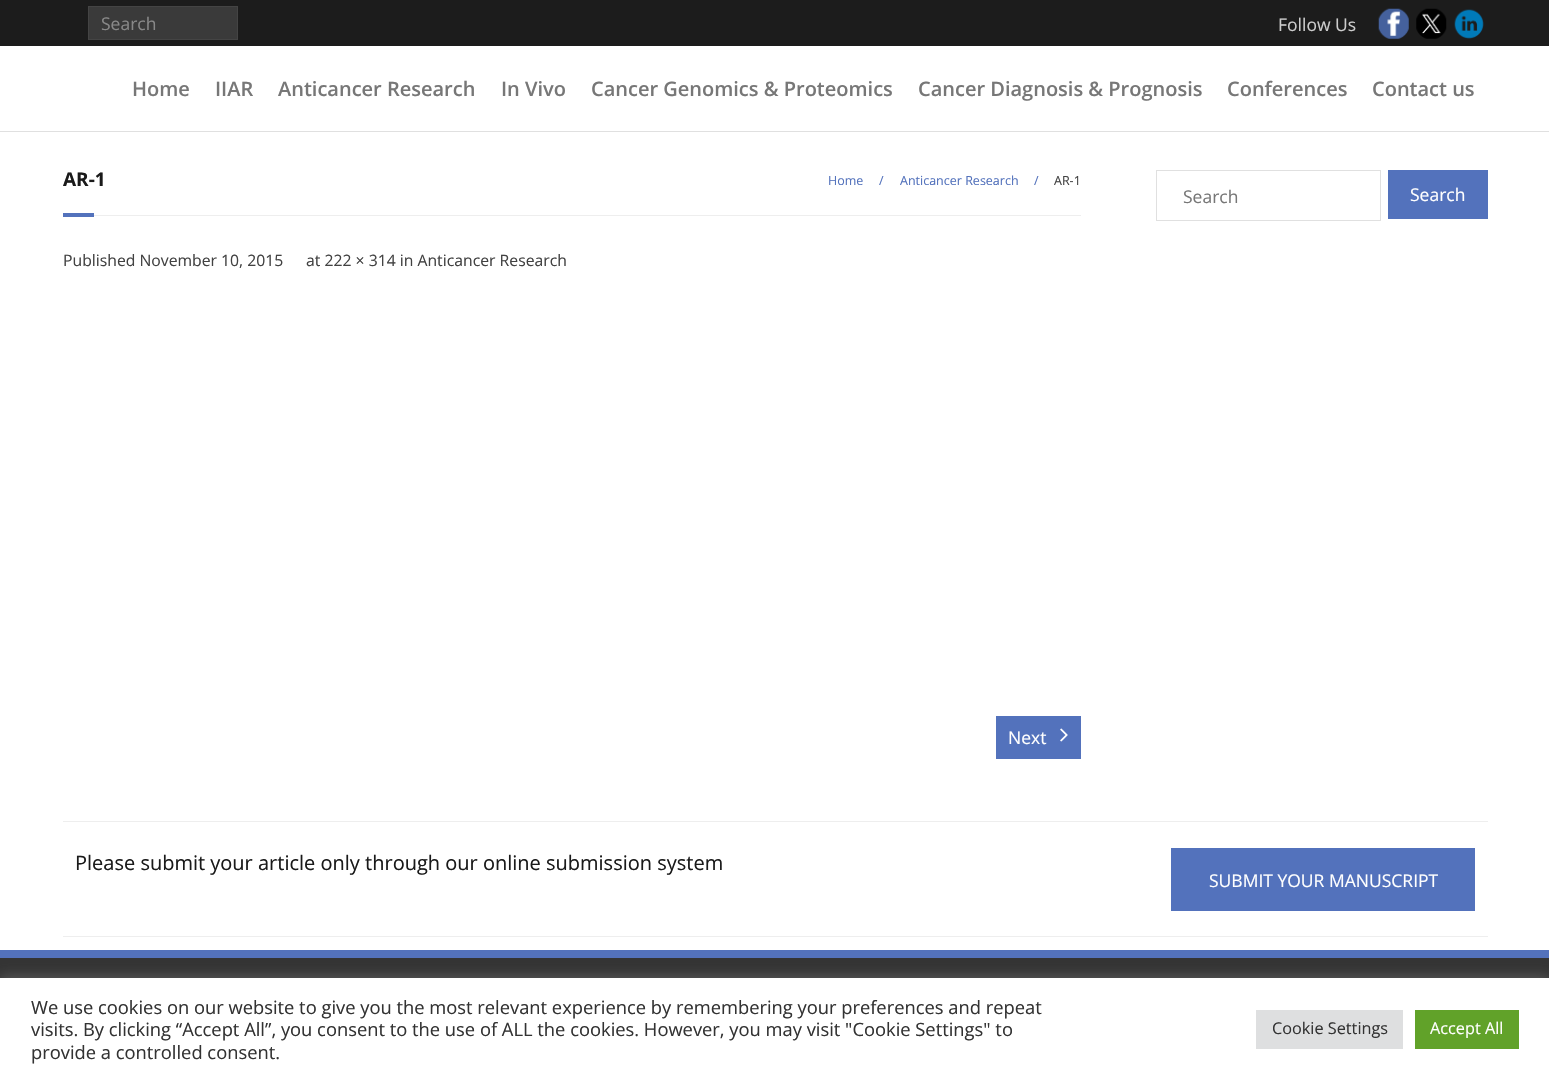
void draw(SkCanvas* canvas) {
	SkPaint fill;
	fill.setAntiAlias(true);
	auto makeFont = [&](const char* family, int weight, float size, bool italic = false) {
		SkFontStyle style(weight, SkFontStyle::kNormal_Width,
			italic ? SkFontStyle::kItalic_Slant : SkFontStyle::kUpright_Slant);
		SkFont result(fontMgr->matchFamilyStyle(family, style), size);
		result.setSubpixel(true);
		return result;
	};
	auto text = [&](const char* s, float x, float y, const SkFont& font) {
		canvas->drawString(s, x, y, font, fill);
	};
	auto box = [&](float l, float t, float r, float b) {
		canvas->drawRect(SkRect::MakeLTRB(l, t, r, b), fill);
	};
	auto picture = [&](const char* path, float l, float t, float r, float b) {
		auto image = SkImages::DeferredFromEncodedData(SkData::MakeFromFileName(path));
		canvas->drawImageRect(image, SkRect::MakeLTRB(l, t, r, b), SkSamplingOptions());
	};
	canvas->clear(0xFFFFFFFF);
	fill.setColor(0xFF1C1C1C);
	box(0, 0, 1549, 46);
	fill.setColor(0xFF3A3A3A);
	canvas->drawRect(SkRect::MakeLTRB(88.5f, 6.5f, 237.5f, 39.5f), fill);
	fill.setStyle(SkPaint::kStroke_Style);
	fill.setStrokeWidth(1);
	fill.setColor(0xFF444444);
	canvas->drawRect(SkRect::MakeLTRB(88.5f, 6.5f, 237.5f, 39.5f), fill);
	picture("image0.png", 1378, 8, 1409, 39);
	picture("image1.png", 1416, 8, 1447, 39);
	picture("image2.png", 1454, 9, 1484, 39);
	fill.setStyle(SkPaint::kFill_Style);
	fill.setColor(0xFFE0E0E0);
	box(0, 131, 1549, 132);
	fill.setColor(0xFF5372BC);
	box(63, 213, 94, 217);
	fill.setColor(0xFFEEEEEE);
	box(94, 215, 1081, 216);
	fill.setColor(0xFF5372BC);
	box(996, 716, 1081, 759);
	picture("image3.png", 1060, 728, 1068, 742);
	fill.setStyle(SkPaint::kStroke_Style);
	fill.setColor(0xFFE0E0E0);
	canvas->drawRect(SkRect::MakeLTRB(1156.5f, 170.5f, 1380.5f, 220.5f), fill);
	fill.setStyle(SkPaint::kFill_Style);
	fill.setColor(0xFF5372BC);
	box(1388, 170, 1488, 219);
	fill.setColor(0xFFEEEEEE);
	box(63, 821, 1488, 822);
	box(63, 936, 1488, 937);
	fill.setColor(0xFF5372BC);
	box(1171, 848, 1475, 911);
	fill.setColor(0xFF333333);
	box(0, 958, 1549, 978);
	fill.setColor(0xFF5372BC);
	box(0, 950, 1549, 958);
	fill.setColor(0x4DACABAB);
	fill.setMaskFilter(SkMaskFilter::MakeBlur(kNormal_SkBlurStyle, 6));
	canvas->drawRect(SkRect::MakeLTRB(0, 976, 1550, 1079), fill);
	fill.setMaskFilter(nullptr);
	fill.setColor(0xFFFFFFFF);
	box(0, 978, 1549, 1079);
	fill.setColor(0xFFDEDFE0);
	box(1256, 1010, 1403, 1049);
	fill.setColor(0xFF61A229);
	box(1415, 1010, 1519, 1049);
	auto font1 = makeFont("Open Sans", 400, 17.5f);
	fill.setColor(0xFF888888);
	text("Search", 101, 30, font1);
	fill.setColor(0xFFCCCCCC);
	text("Follow Us", 1278, 31, font1);
	auto font2 = makeFont("Open Sans", 600, 20);
	fill.setColor(0xFF777777);
	text("Home", 132, 96, font2);
	text("IIAR", 215, 96, font2);
	text("Anticancer Research", 278, 96, font2);
	text("In Vivo", 501, 96, font2);
	text("Cancer Genomics & Proteomics", 591, 96, font2);
	text("Cancer Diagnosis & Prognosis", 918, 96, font2);
	text("Conferences", 1227, 96, font2);
	text("Contact us", 1372, 96, font2);
	auto font3 = makeFont("Open Sans", 700, 19);
	fill.setColor(0xFF1A1A1A);
	text("AR-1", 63, 186, font3);
	auto font4 = makeFont("Open Sans", 400, 12.5f);
	fill.setColor(0xFF5372BC);
	text("Home", 828, 185, font4);
	text("/", 879, 185, font4);
	text("Anticancer Research", 900, 185, font4);
	text("/", 1034, 185, font4);
	fill.setColor(0xFF424242);
	text("AR-1", 1054, 185, font4);
	auto font5 = makeFont("Open Sans", 400, 15.75f);
	text("Published November 10, 2015", 63, 266, font5);
	text("at 222 × 314 in Anticancer Research", 306, 266, font5);
	fill.setColor(0xFFFFFFFF);
	text("Next", 1008, 744, font1);
	fill.setColor(0xFF777777);
	text("Search", 1183, 203, font1);
	fill.setColor(0xFFFFFFFF);
	text("Search", 1410, 201, font1);
	auto font6 = makeFont("Open Sans", 400, 20);
	fill.setColor(0xFF1A1A1A);
	text("Please submit your article only through our online submission system", 75, 870, font6);
	fill.setColor(0xFFFFFFFF);
	text("SUBMIT YOUR MANUSCRIPT", 1209, 887, font1);
	auto font7 = makeFont("Open Sans", 400, 18.33f);
	fill.setColor(0xFF333333);
	text("We use cookies on our website to give you the most relevant experience by remembering your preferences and repeat", 31, 1014, font7);
	text("visits. By clicking “Accept All”, you consent to the use of ALL the cookies. However, you may visit \"Cookie Settings\" to", 31, 1036, font7);
	text("provide a controlled consent.", 31, 1059, font7);
	auto font8 = makeFont("Open Sans", 400, 16.25f);
	text("Cookie Settings", 1272, 1034, font8);
	fill.setColor(0xFFFFFFFF);
	text("Accept All", 1430, 1034, font8);
}
